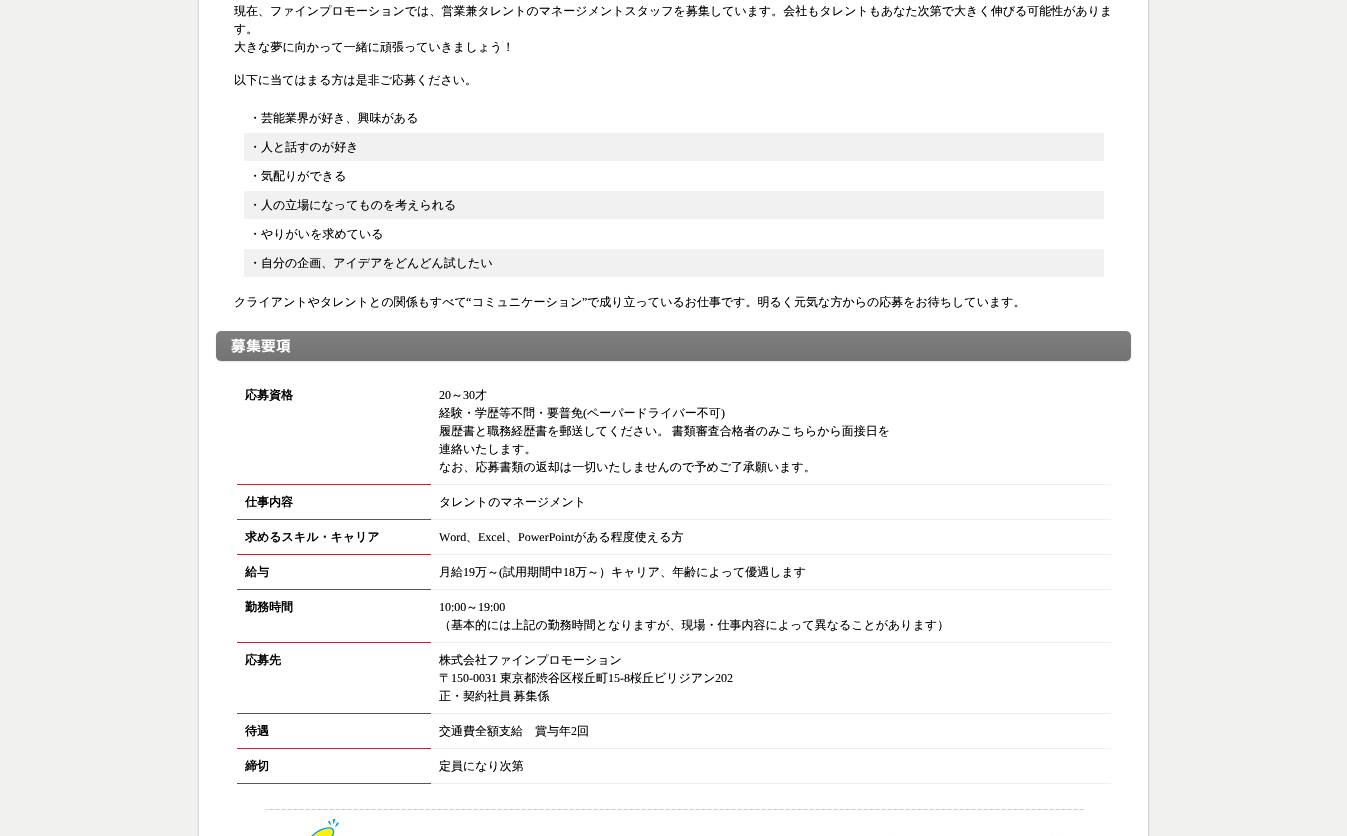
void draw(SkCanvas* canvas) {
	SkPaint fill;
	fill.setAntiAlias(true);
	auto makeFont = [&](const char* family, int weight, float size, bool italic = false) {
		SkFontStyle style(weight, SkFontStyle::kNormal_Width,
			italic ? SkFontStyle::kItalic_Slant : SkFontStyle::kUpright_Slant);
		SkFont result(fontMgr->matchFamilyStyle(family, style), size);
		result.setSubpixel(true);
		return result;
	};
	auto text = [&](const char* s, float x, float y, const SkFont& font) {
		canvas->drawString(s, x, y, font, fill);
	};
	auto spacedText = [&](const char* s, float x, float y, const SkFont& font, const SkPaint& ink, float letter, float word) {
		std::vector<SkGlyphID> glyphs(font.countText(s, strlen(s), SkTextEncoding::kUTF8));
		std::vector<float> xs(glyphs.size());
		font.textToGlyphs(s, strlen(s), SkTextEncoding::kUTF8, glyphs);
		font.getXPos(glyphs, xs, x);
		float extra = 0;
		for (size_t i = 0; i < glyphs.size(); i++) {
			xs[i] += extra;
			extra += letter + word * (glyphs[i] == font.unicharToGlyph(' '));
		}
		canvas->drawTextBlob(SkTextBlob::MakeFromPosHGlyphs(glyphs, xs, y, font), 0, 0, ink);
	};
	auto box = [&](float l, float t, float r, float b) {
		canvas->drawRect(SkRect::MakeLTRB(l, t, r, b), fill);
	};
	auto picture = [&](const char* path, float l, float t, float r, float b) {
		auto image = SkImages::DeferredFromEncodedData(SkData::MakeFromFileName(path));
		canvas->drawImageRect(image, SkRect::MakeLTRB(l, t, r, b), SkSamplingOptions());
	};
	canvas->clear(0xFFF1F1F0);
	picture("image0.png", 197, 0, 1150, 836);
	fill.setColor(0xFFF1F1F1);
	box(244, 133, 1104, 161);
	box(244, 191, 1104, 219);
	box(244, 249, 1104, 277);
	picture("image1.png", 215, 331, 1132, 363);
	fill.setColor(0xFFAA303F);
	box(237, 484, 431, 485);
	fill.setColor(0xFFEEEEEE);
	box(431, 484, 1111, 485);
	fill.setColor(0xFFAA303F);
	box(237, 519, 431, 520);
	fill.setColor(0xFFEEEEEE);
	box(431, 519, 1111, 520);
	fill.setColor(0xFFAA303F);
	box(237, 554, 431, 555);
	fill.setColor(0xFFEEEEEE);
	box(431, 554, 1111, 555);
	fill.setColor(0xFFAA303F);
	box(237, 589, 431, 590);
	fill.setColor(0xFFEEEEEE);
	box(431, 589, 1111, 590);
	fill.setColor(0xFFAA303F);
	box(237, 642, 431, 643);
	fill.setColor(0xFFEEEEEE);
	box(431, 642, 1111, 643);
	fill.setColor(0xFFAA303F);
	box(237, 713, 431, 714);
	fill.setColor(0xFFEEEEEE);
	box(431, 713, 1111, 714);
	fill.setColor(0xFFAA303F);
	box(237, 748, 431, 749);
	fill.setColor(0xFFEEEEEE);
	box(431, 748, 1111, 749);
	fill.setColor(0xFFAA303F);
	box(237, 783, 431, 784);
	fill.setColor(0xFFEEEEEE);
	box(431, 783, 1111, 784);
	picture("image2.png", 264, 809, 1084, 836);
	auto font1 = makeFont("WenQuanYi Zen Hei", 500, 12);
	fill.setColor(0xFF000000);
	text("現在、ファインプロモーションでは、営業兼タレントのマネージメントスタッフを募集しています。会社もタレントもあなた次第で大きく伸びる可能性がありま", 234, 15, font1);
	text("す。", 234, 33, font1);
	text("大きな夢に向かって一緒に頑張っていきましょう！", 234, 51, font1);
	text("以下に当てはまる方は是非ご応募ください。", 234, 84, font1);
	text("・芸能業界が好き、興味がある", 249, 122, font1);
	text("・人と話すのが好き", 249, 151, font1);
	text("・気配りができる", 249, 180, font1);
	text("・人の立場になってものを考えられる", 249, 209, font1);
	text("・やりがいを求めている", 249, 238, font1);
	text("・自分の企画、アイデアをどんどん試したい", 249, 267, font1);
	text("クライアントやタレントとの関係もすべて", 234, 306, font1);
	auto font2 = makeFont("Liberation Serif", 400, 12);
	text("“", 466, 306, font2);
	text("コミュニケーション", 472, 306, font1);
	text("”", 582, 306, font2);
	text("で成り立っているお仕事です。明るく元気な方からの応募をお待ちしています。", 587, 306, font1);
	auto font3 = makeFont("WenQuanYi Zen Hei", 700, 12);
	text("応募資格", 245, 399, font3);
	text("20", 439, 399, font2);
	text("～", 451, 399, font1);
	text("30", 463, 399, font2);
	text("才", 475, 399, font1);
	text("経験・学歴等不問・要普免", 439, 417, font1);
	text("(", 583, 417, font2);
	text("ペーパードライバー不可", 587, 417, font1);
	text(")", 721, 417, font2);
	spacedText("履歴書と職務経歴書を郵送してください。 書類審査合格者のみこちらから面接日を", 439, 435, font1, fill, 0, -1);
	text("連絡いたします。", 439, 453, font1);
	text("なお、応募書類の返却は一切いたしませんので予めご了承願います。", 439, 471, font1);
	text("仕事内容", 245, 506, font3);
	text("タレントのマネージメント", 439, 506, font1);
	text("求めるスキル・キャリア", 245, 541, font3);
	text("Word", 439, 541, font2);
	text("、", 466, 541, font1);
	text("Excel", 478, 541, font2);
	text("、", 506, 541, font1);
	text("PowerPoint", 518, 541, font2);
	text("がある程度使える方", 574, 541, font1);
	text("給与", 245, 576, font3);
	text("月給", 439, 576, font1);
	text("19", 463, 576, font2);
	text("万～", 475, 576, font1);
	text("(", 499, 576, font2);
	text("試用期間中", 503, 576, font1);
	text("18", 563, 576, font2);
	text("万～）キャリア、年齢によって優遇します", 575, 576, font1);
	text("勤務時間", 245, 611, font3);
	text("10:00", 439, 611, font2);
	text("～", 466, 611, font1);
	text("19:00", 478, 611, font2);
	text("（基本的には上記の勤務時間となりますが、現場・仕事内容によって異なることがあります）", 439, 629, font1);
	text("応募先", 245, 664, font3);
	text("株式会社ファインプロモーション", 439, 664, font1);
	text("〒", 439, 682, font1);
	text("150-0031", 451, 682, font2);
	text("東京都渋谷区桜丘町", 500, 682, font1);
	text("15-8", 608, 682, font2);
	text("桜丘ビリジアン", 630, 682, font1);
	text("202", 715, 682, font2);
	spacedText("正・契約社員 募集係", 439, 700, font1, fill, 0, -1);
	text("待遇", 245, 735, font3);
	text("交通費全額支給　賞与年", 439, 735, font1);
	text("2", 571, 735, font2);
	text("回", 577, 735, font1);
	text("締切", 245, 770, font3);
	text("定員になり次第", 439, 770, font1);
}
